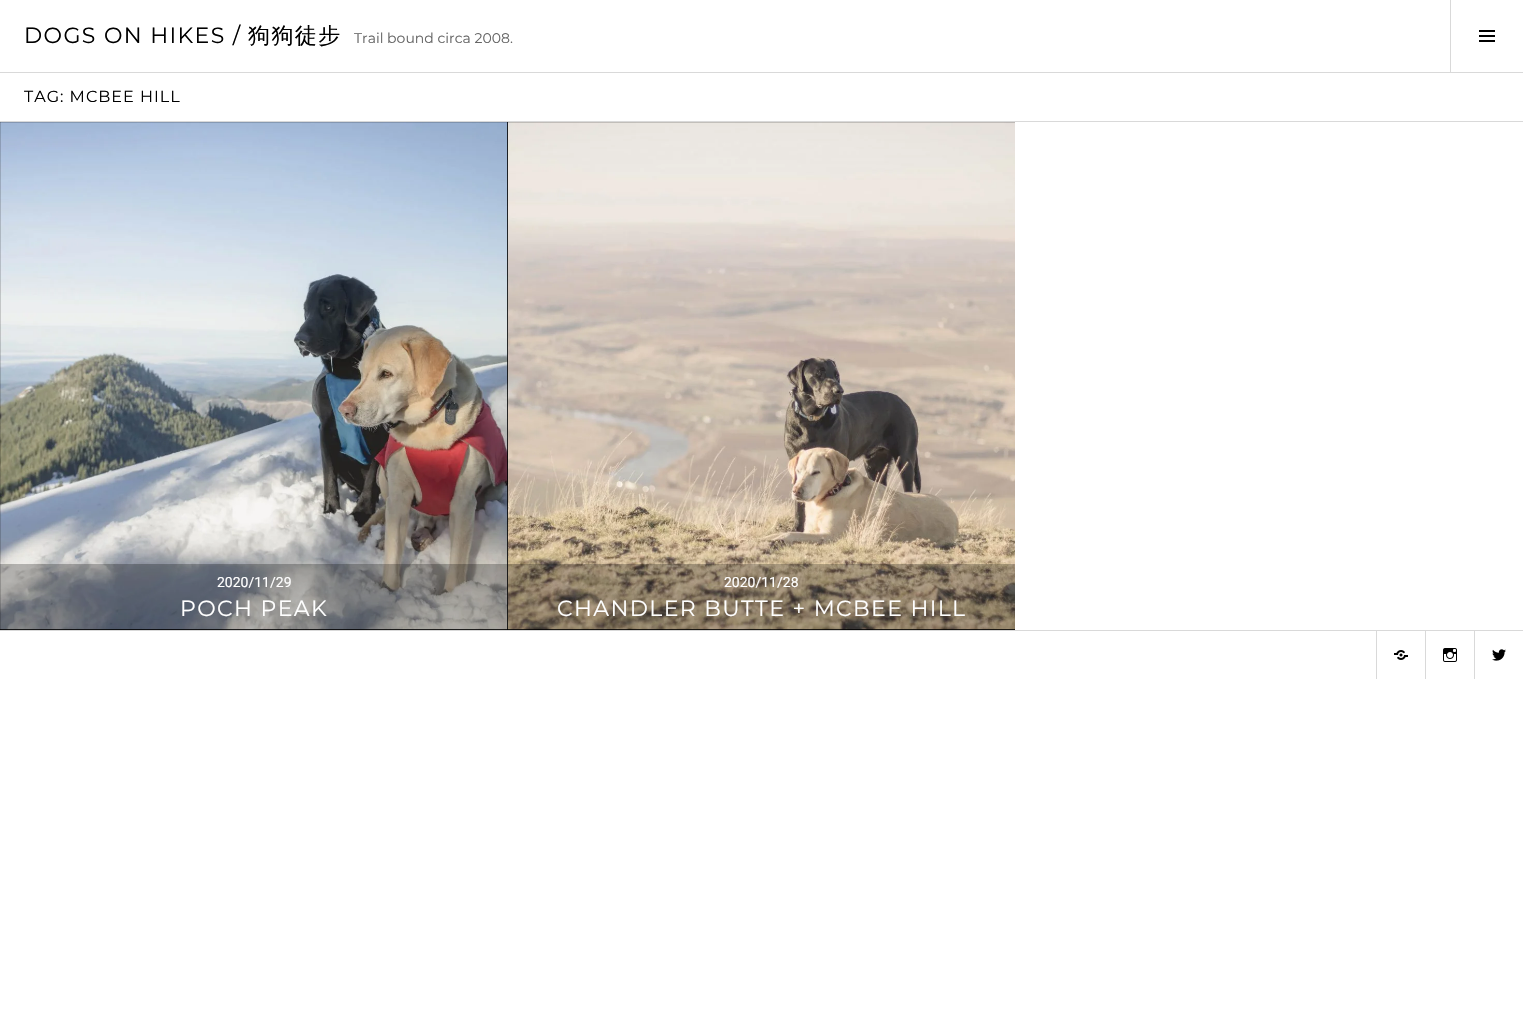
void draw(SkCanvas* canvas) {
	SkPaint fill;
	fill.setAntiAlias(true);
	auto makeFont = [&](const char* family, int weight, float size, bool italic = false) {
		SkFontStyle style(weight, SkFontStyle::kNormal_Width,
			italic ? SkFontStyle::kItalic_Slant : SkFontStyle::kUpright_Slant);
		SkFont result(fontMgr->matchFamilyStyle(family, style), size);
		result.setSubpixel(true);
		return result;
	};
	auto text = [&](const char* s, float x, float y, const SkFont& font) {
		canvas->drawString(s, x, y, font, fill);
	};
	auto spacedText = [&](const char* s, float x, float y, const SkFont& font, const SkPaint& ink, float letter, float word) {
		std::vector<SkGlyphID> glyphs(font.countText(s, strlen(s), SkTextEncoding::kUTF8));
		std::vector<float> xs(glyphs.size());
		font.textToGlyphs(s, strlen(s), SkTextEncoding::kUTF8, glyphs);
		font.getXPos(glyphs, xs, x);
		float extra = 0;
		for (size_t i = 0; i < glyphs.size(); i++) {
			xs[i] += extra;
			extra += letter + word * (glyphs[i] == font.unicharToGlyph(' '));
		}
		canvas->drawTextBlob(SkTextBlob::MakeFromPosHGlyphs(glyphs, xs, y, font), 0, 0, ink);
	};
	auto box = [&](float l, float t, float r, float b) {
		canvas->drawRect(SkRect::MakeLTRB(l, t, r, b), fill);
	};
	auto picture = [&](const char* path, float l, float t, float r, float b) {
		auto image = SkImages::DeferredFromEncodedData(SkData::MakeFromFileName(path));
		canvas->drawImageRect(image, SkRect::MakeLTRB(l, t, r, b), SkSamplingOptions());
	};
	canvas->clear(0xFFFFFFFF);
	fill.setColor(0xFFD9D9D9);
	box(0, 72, 1523, 73);
	box(1450, 0, 1451, 72);
	picture("image0.png", 1479, 30, 1495, 42);
	box(0, 121, 1523, 122);
	fill.setColor(0xFF000000);
	box(0, 122, 1015, 630);
	picture("image1.png", 0, 122, 508, 630);
	fill.setColor(0x40000000);
	box(0, 564, 508, 630);
	picture("image2.png", 508, 122, 1015, 630);
	box(508, 564, 1015, 630);
	fill.setColor(0xFFD9D9D9);
	box(0, 630, 1523, 631);
	canvas->save();
	canvas->clipRect(SkRect::MakeLTRB(0, 631, 1523, 679));
	fill.setStyle(SkPaint::kStroke_Style);
	fill.setStrokeWidth(1);
	canvas->drawRect(SkRect::MakeLTRB(1376.5f, 630.5f, 1425.5f, 679.5f), fill);
	canvas->restore();
	picture("image3.png", 1394, 650, 1408, 660);
	canvas->save();
	canvas->clipRect(SkRect::MakeLTRB(0, 631, 1523, 679));
	canvas->drawRect(SkRect::MakeLTRB(1425.5f, 630.5f, 1474.5f, 679.5f), fill);
	canvas->restore();
	picture("image4.png", 1443, 648, 1457, 662);
	picture("image5.png", 1492, 649, 1506, 661);
	auto font1 = makeFont("Montserrat", 400, 22);
	fill.setStyle(SkPaint::kFill_Style);
	fill.setColor(0xFF000000);
	spacedText("DOGS ON HIKES /", 24, 43, font1, fill, 1.4f, 0);
	auto font2 = makeFont("WenQuanYi Zen Hei", 500, 22);
	spacedText("狗狗徒步", 248, 43, font2, fill, 1.4f, 0);
	auto font3 = makeFont("Montserrat", 400, 14);
	fill.setColor(0xFF666666);
	text("Trail bound circa 2008.", 354, 43, font3);
	auto font4 = makeFont("Montserrat", 400, 16);
	fill.setColor(0xFF000000);
	spacedText("TAG: MCBEE HILL", 24, 102, font4, fill, 1, 0);
	auto font5 = makeFont("Roboto", 400, 14);
	fill.setColor(0xFFFFFFFF);
	text("2020/11/29", 217, 587, font5);
	spacedText("POCH PEAK", 180, 616, font1, fill, 1.4f, 0);
	text("2020/11/28", 724, 587, font5);
	spacedText("CHANDLER BUTTE + MCBEE HILL", 557, 616, font1, fill, 1.4f, 0);
}
